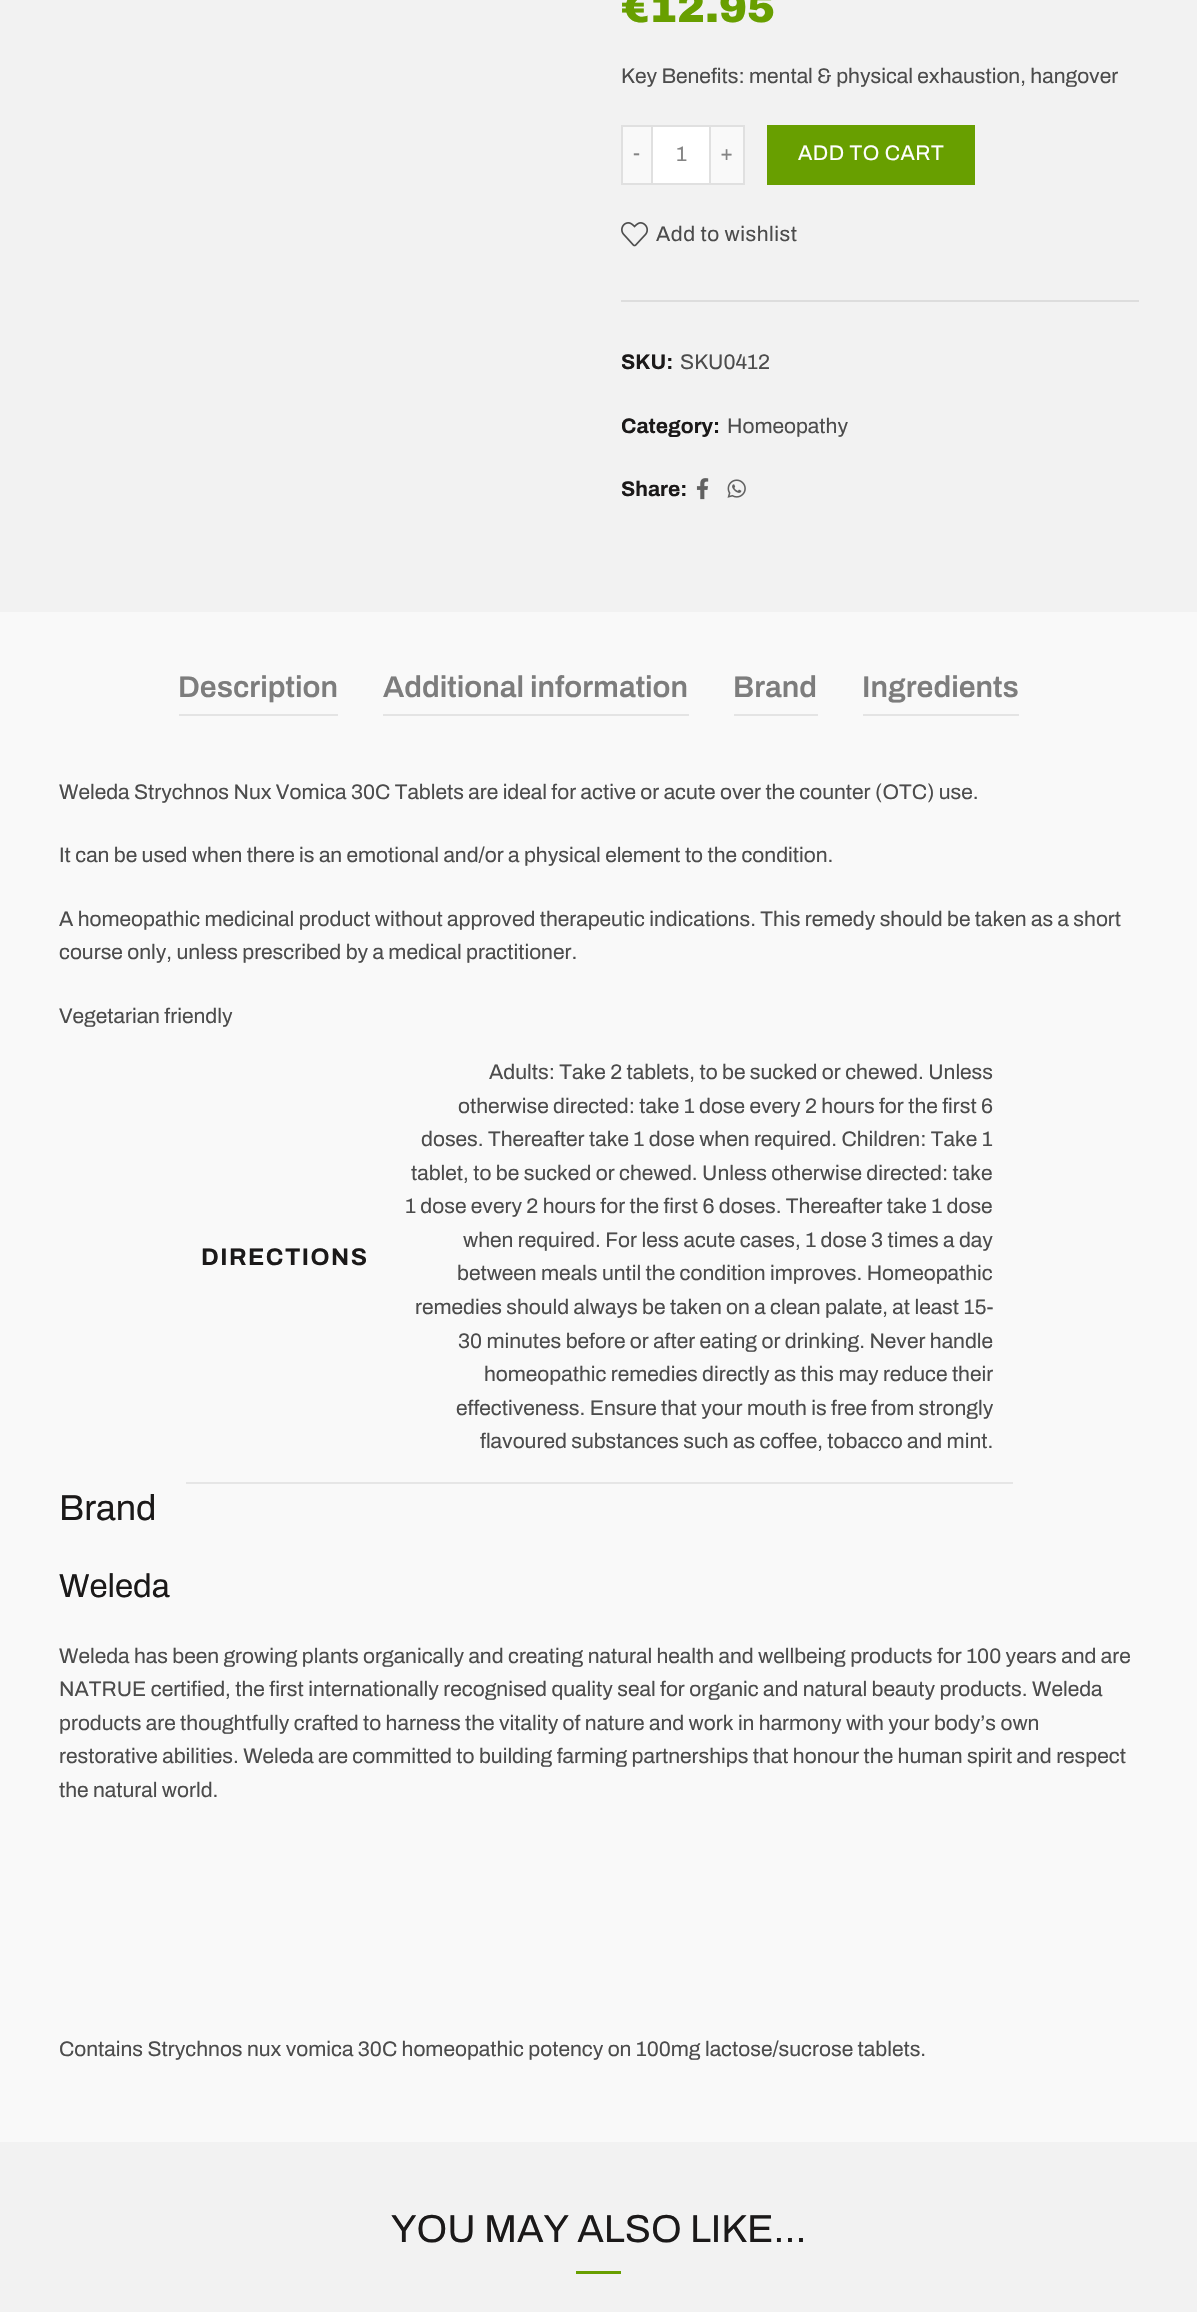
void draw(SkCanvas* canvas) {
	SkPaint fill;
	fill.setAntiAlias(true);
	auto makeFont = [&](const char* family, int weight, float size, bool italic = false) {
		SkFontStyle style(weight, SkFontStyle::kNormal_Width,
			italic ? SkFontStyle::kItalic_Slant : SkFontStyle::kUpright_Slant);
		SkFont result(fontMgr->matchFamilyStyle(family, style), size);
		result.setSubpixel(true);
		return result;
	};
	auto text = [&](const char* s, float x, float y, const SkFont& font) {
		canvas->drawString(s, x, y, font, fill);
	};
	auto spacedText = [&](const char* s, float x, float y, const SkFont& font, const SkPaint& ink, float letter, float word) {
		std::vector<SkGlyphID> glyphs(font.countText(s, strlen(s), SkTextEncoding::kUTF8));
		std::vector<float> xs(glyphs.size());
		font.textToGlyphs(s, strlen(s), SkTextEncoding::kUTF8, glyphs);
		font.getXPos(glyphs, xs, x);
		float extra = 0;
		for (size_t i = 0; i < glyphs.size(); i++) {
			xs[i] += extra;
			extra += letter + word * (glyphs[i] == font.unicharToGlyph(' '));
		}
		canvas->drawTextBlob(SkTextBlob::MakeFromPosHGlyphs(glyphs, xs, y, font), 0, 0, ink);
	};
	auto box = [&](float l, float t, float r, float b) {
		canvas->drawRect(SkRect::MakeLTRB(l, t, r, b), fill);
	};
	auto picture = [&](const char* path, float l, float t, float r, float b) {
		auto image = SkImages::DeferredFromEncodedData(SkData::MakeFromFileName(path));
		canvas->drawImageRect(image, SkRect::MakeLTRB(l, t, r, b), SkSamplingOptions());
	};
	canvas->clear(0xFFF2F2F2);
	fill.setColor(0xFFF9F9F9);
	box(623, 127, 651, 183);
	fill.setColor(0xFFE0E0E0);
	box(621, 125, 651, 127);
	box(621, 183, 651, 185);
	box(621, 125, 623, 185);
	fill.setColor(0xFFFFFFFF);
	canvas->drawRect(SkRect::MakeLTRB(652, 126, 710, 184), fill);
	fill.setStyle(SkPaint::kStroke_Style);
	fill.setStrokeWidth(2);
	fill.setColor(0xFFE0E0E0);
	canvas->drawRect(SkRect::MakeLTRB(652, 126, 710, 184), fill);
	fill.setStyle(SkPaint::kFill_Style);
	fill.setColor(0xFFF9F9F9);
	box(711, 127, 743, 183);
	fill.setColor(0xFFE0E0E0);
	box(711, 125, 744, 127);
	box(743, 125, 745, 185);
	box(711, 183, 744, 185);
	fill.setColor(0xFF689F00);
	box(767, 125, 975, 185);
	picture("image0.png", 621, 222, 648, 247);
	fill.setColor(0xFFDDDDDD);
	box(621, 300, 1139, 302);
	picture("image1.png", 696, 478, 709, 500);
	picture("image2.png", 727, 479, 746, 498);
	fill.setColor(0xFFF9F9F9);
	box(0, 612, 1197, 2142);
	fill.setColor(0xFFE4E4E4);
	box(179, 714, 338, 716);
	box(383, 714, 689, 716);
	box(734, 714, 818, 716);
	box(863, 714, 1019, 716);
	fill.setColor(0xFFE6E6E6);
	box(186, 1482, 1013, 1484);
	fill.setColor(0xFF689F00);
	box(576, 2271, 621, 2274);
	auto font1 = makeFont("Archivo", 900, 42);
	text("€12.95", 621, 22, font1);
	auto font2 = makeFont("Archivo", 400, 21);
	fill.setColor(0xFF4C4C4C);
	text("Key Benefits: mental & physical exhaustion, hangover", 621, 83, font2);
	fill.setColor(0xFF848484);
	text("-", 633, 160, font2);
	text("1", 676, 161, font2);
	text("+", 720, 160, font2);
	fill.setColor(0xFFFFFFFF);
	spacedText("ADD TO CART", 798, 160, font2, fill, 0.5f, 0);
	fill.setColor(0xFF4C4C4C);
	spacedText("Add to wishlist", 656, 241, font2, fill, 0.5f, 0);
	auto font3 = makeFont("Archivo", 700, 21);
	fill.setColor(0xFF1B1919);
	text("SKU:", 621, 369, font3);
	fill.setColor(0xFF4C4C4C);
	text("SKU0412", 680, 369, font2);
	fill.setColor(0xFF1B1919);
	text("Category:", 621, 433, font3);
	fill.setColor(0xFF4C4C4C);
	text("Homeopathy", 727, 433, font2);
	fill.setColor(0xFF1B1919);
	text("Share:", 621, 496, font3);
	auto font4 = makeFont("Archivo", 600, 30);
	fill.setColor(0xFF7D7D7D);
	text("Description", 178, 697, font4);
	text("Additional information", 383, 697, font4);
	text("Brand", 733, 697, font4);
	text("Ingredients", 862, 697, font4);
	fill.setColor(0xFF4C4C4C);
	text("Weleda Strychnos Nux Vomica 30C Tablets are ideal for active or acute over the counter (OTC) use.", 59, 799, font2);
	text("It can be used when there is an emotional and/or a physical element to the condition.", 59, 862, font2);
	text("A homeopathic medicinal product without approved therapeutic indications. This remedy should be taken as a short", 59, 926, font2);
	text("course only, unless prescribed by a medical practitioner.", 59, 959, font2);
	text("Vegetarian friendly", 59, 1023, font2);
	auto font5 = makeFont("Archivo", 700, 24);
	fill.setColor(0xFF1B1919);
	spacedText("DIRECTIONS", 201, 1265, font5, fill, 1.5f, 0);
	fill.setColor(0xFF4C4C4C);
	text("Adults: Take 2 tablets, to be sucked or chewed. Unless", 489, 1079, font2);
	text("otherwise directed: take 1 dose every 2 hours for the first 6", 458, 1113, font2);
	text("doses. Thereafter take 1 dose when required. Children: Take 1", 421, 1146, font2);
	text("tablet, to be sucked or chewed. Unless otherwise directed: take", 411, 1180, font2);
	text("1 dose every 2 hours for the first 6 doses. Thereafter take 1 dose", 405, 1213, font2);
	text("when required. For less acute cases, 1 dose 3 times a day", 463, 1247, font2);
	text("between meals until the condition improves. Homeopathic", 457, 1280, font2);
	text("remedies should always be taken on a clean palate, at least 15-", 415, 1314, font2);
	text("30 minutes before or after eating or drinking. Never handle", 458, 1348, font2);
	text("homeopathic remedies directly as this may reduce their", 484, 1381, font2);
	text("effectiveness. Ensure that your mouth is free from strongly", 456, 1415, font2);
	text("flavoured substances such as coffee, tobacco and mint.", 480, 1448, font2);
	auto font6 = makeFont("Archivo", 400, 36);
	fill.setColor(0xFF1B1919);
	text("Brand", 59, 1520, font6);
	auto font7 = makeFont("Archivo", 400, 33);
	text("Weleda", 59, 1597, font7);
	fill.setColor(0xFF4C4C4C);
	text("Weleda has been growing plants organically and creating natural health and wellbeing products for 100 years and are", 59, 1663, font2);
	text("NATRUE certified, the first internationally recognised quality seal for organic and natural beauty products. Weleda", 59, 1696, font2);
	text("products are thoughtfully crafted to harness the vitality of nature and work in harmony with your body’s own", 59, 1730, font2);
	text("restorative abilities. Weleda are committed to building farming partnerships that honour the human spirit and respect", 59, 1763, font2);
	text("the natural world.", 59, 1797, font2);
	text("Contains Strychnos nux vomica 30C homeopathic potency on 100mg lactose/sucrose tablets.", 59, 2056, font2);
	auto font8 = makeFont("Archivo", 400, 39);
	fill.setColor(0xFF1B1919);
	text("YOU MAY ALSO LIKE…", 391, 2242, font8);
}
